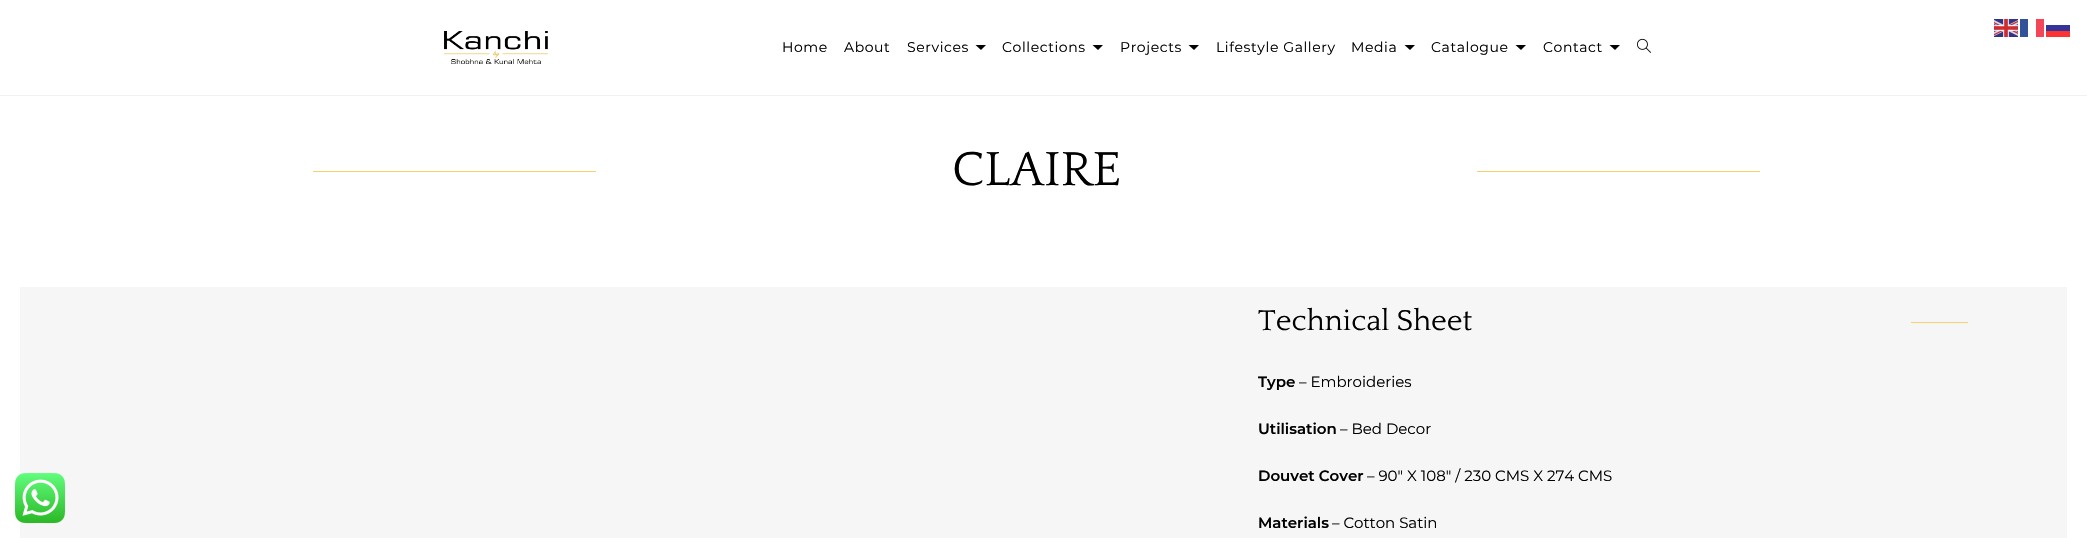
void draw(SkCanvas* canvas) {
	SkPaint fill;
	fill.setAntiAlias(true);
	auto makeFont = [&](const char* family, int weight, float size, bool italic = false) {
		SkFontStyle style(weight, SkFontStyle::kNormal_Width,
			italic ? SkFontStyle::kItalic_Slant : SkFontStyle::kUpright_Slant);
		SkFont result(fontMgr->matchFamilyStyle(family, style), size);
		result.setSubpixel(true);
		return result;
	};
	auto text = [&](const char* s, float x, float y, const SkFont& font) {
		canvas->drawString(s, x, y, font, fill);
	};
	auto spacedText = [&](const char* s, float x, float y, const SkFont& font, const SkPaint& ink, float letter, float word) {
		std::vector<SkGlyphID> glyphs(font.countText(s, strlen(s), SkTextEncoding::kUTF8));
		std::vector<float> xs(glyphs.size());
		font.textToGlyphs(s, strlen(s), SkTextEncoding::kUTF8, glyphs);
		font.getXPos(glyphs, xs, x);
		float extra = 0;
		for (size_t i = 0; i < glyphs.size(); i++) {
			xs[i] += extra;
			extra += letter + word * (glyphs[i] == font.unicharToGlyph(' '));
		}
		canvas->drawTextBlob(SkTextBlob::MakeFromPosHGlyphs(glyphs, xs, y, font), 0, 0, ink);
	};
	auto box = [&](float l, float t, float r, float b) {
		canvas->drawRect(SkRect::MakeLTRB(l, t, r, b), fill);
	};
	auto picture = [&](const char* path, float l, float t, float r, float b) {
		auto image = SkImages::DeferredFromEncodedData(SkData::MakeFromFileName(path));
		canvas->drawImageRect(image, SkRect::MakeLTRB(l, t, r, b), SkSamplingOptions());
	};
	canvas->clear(0xFFFFFFFF);
	picture("image0.png", 1994, 19, 2018, 37);
	fill.setColor(0xFF335199);
	box(2020, 19, 2028, 37);
	fill.setColor(0xFFF54659);
	box(2036, 19, 2044, 37);
	fill.setColor(0xFF343498);
	box(2046, 25, 2070, 31);
	fill.setColor(0xFFFE3434);
	box(2046, 31, 2070, 37);
	fill.setColor(0xFFF6F6F6);
	box(20, 287, 2067, 538);
	picture("image1.png", 15, 473, 65, 523);
	fill.setColor(0xFFF1F1F1);
	box(0, 95, 2087, 96);
	picture("image2.png", 444, 31, 548, 64);
	fill.setColor(0xFF000000);
	canvas->drawPath(SkPathBuilder().moveTo(975.5f, 45).lineTo(986, 45).lineTo(981, 50).close().detach(), fill);
	canvas->drawPath(SkPathBuilder().moveTo(1092.5f, 45).lineTo(1103, 45).lineTo(1098, 50).close().detach(), fill);
	canvas->drawPath(SkPathBuilder().moveTo(1188.5f, 45).lineTo(1199, 45).lineTo(1194, 50).close().detach(), fill);
	canvas->drawPath(SkPathBuilder().moveTo(1404.5f, 45).lineTo(1415, 45).lineTo(1410, 50).close().detach(), fill);
	canvas->drawPath(SkPathBuilder().moveTo(1515.5f, 45).lineTo(1526, 45).lineTo(1521, 50).close().detach(), fill);
	canvas->drawPath(SkPathBuilder().moveTo(1609.5f, 45).lineTo(1620, 45).lineTo(1615, 50).close().detach(), fill);
	picture("image3.png", 1637, 38, 1651, 53);
	fill.setColor(0xFFF4D271);
	box(313, 171, 596, 172);
	box(1477, 171, 1760, 172);
	box(1911, 322, 1968, 323);
	auto font1 = makeFont("Montserrat", 400, 14);
	fill.setColor(0xFF000000);
	spacedText("Home", 782, 52, font1, fill, 0.6f, 0);
	spacedText("About", 844, 52, font1, fill, 0.6f, 0);
	spacedText("Services", 907, 52, font1, fill, 0.6f, 0);
	spacedText("Collections", 1002, 52, font1, fill, 0.6f, 0);
	spacedText("Projects", 1120, 52, font1, fill, 0.6f, 0);
	spacedText("Lifestyle Gallery", 1216, 52, font1, fill, 0.6f, 0);
	spacedText("Media", 1351, 52, font1, fill, 0.6f, 0);
	spacedText("Catalogue", 1431, 52, font1, fill, 0.6f, 0);
	spacedText("Contact", 1543, 52, font1, fill, 0.6f, 0);
	auto font2 = makeFont("Quattrocento", 400, 50);
	text("CLAIRE", 952, 185, font2);
	auto font3 = makeFont("Quattrocento", 400, 30);
	text("Technical Sheet", 1258, 330, font3);
	auto font4 = makeFont("Montserrat", 600, 15);
	text("Type", 1258, 387, font4);
	auto font5 = makeFont("Montserrat", 400, 15);
	text("– Embroideries", 1299, 387, font5);
	text("Utilisation", 1258, 434, font4);
	text("– Bed Decor", 1340, 434, font5);
	text("Douvet Cover", 1258, 481, font4);
	text("– 90″ X 108″ / 230 CMS X 274 CMS", 1367, 481, font5);
	text("Materials", 1258, 528, font4);
	text("– Cotton Satin", 1332, 528, font5);
}
